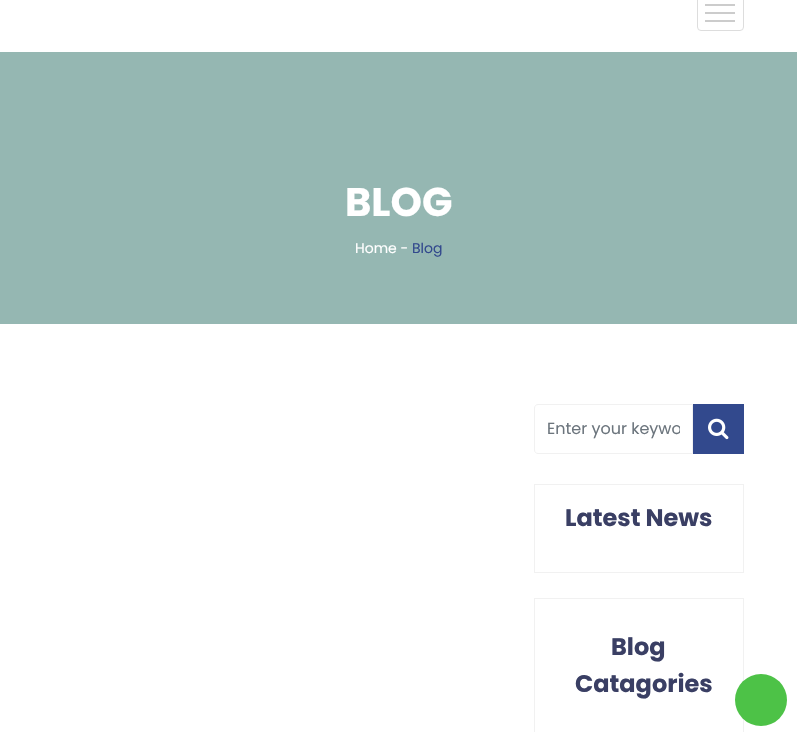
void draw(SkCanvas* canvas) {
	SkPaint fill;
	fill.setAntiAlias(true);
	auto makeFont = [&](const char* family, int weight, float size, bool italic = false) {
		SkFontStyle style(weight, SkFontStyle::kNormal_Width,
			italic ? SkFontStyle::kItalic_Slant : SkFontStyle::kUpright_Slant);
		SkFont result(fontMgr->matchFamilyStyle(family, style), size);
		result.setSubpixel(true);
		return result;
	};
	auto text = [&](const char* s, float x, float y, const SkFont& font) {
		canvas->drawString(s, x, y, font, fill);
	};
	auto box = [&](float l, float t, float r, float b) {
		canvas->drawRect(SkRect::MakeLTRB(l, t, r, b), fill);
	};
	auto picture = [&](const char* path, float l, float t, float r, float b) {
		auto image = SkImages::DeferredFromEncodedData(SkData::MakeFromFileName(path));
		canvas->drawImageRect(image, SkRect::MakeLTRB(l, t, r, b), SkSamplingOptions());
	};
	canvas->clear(0xFFFFFFFF);
	fill.setStyle(SkPaint::kStroke_Style);
	fill.setStrokeWidth(1);
	fill.setColor(0xFFDDDDDD);
	canvas->drawRoundRect(SkRect::MakeLTRB(697.5f, -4.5f, 743.5f, 30.5f), 3.5f, 3.5f, fill);
	fill.setStyle(SkPaint::kFill_Style);
	fill.setColor(0xFFCCCCCC);
	box(705, 4, 735, 6);
	box(705, 12, 735, 14);
	box(705, 20, 735, 22);
	fill.setColor(0xFF95B7B2);
	box(0, 52, 797, 324);
	fill.setStyle(SkPaint::kStroke_Style);
	fill.setColor(0xFFF1F1F1);
	canvas->drawPath(SkPathBuilder().moveTo(538, 404.5f).lineTo(692.5f, 404.5f).lineTo(692.5f, 453.5f).lineTo(538, 453.5f).cubicTo(536, 453.5f, 534.5f, 452, 534.5f, 450).lineTo(534.5f, 408).cubicTo(534.5f, 406, 536, 404.5f, 538, 404.5f).close().detach(), fill);
	fill.setStyle(SkPaint::kFill_Style);
	fill.setColor(0xFF32498D);
	box(693, 404, 744, 454);
	picture("image0.png", 708, 418, 729, 440);
	fill.setStyle(SkPaint::kStroke_Style);
	fill.setColor(0xFFF1F1F1);
	canvas->drawRect(SkRect::MakeLTRB(534.5f, 484.5f, 743.5f, 572.5f), fill);
	canvas->drawRect(SkRect::MakeLTRB(534.5f, 598.5f, 743.5f, 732.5f), fill);
	fill.setStyle(SkPaint::kFill_Style);
	fill.setColor(0xFF4DC247);
	canvas->drawCircle(761, 700, 26, fill);
	auto font1 = makeFont("Poppins", 700, 40);
	fill.setColor(0xFFFFFFFF);
	text("BLOG", 345, 216, font1);
	auto font2 = makeFont("Poppins", 400, 14);
	text("Home -", 355, 253, font2);
	fill.setColor(0xFF32498D);
	text("Blog", 412, 253, font2);
	canvas->save();
	canvas->clipRect(SkRect::MakeLTRB(547, 416, 680, 441));
	auto font3 = makeFont("Poppins", 400, 16);
	fill.setColor(0xFF6C757D);
	text("Enter your keywo", 547, 434, font3);
	canvas->restore();
	auto font4 = makeFont("Poppins", 700, 24);
	fill.setColor(0xFF3A3F64);
	text("Latest News", 565, 526, font4);
	text("Blog", 611, 655, font4);
	text("Catagories", 575, 692, font4);
}
